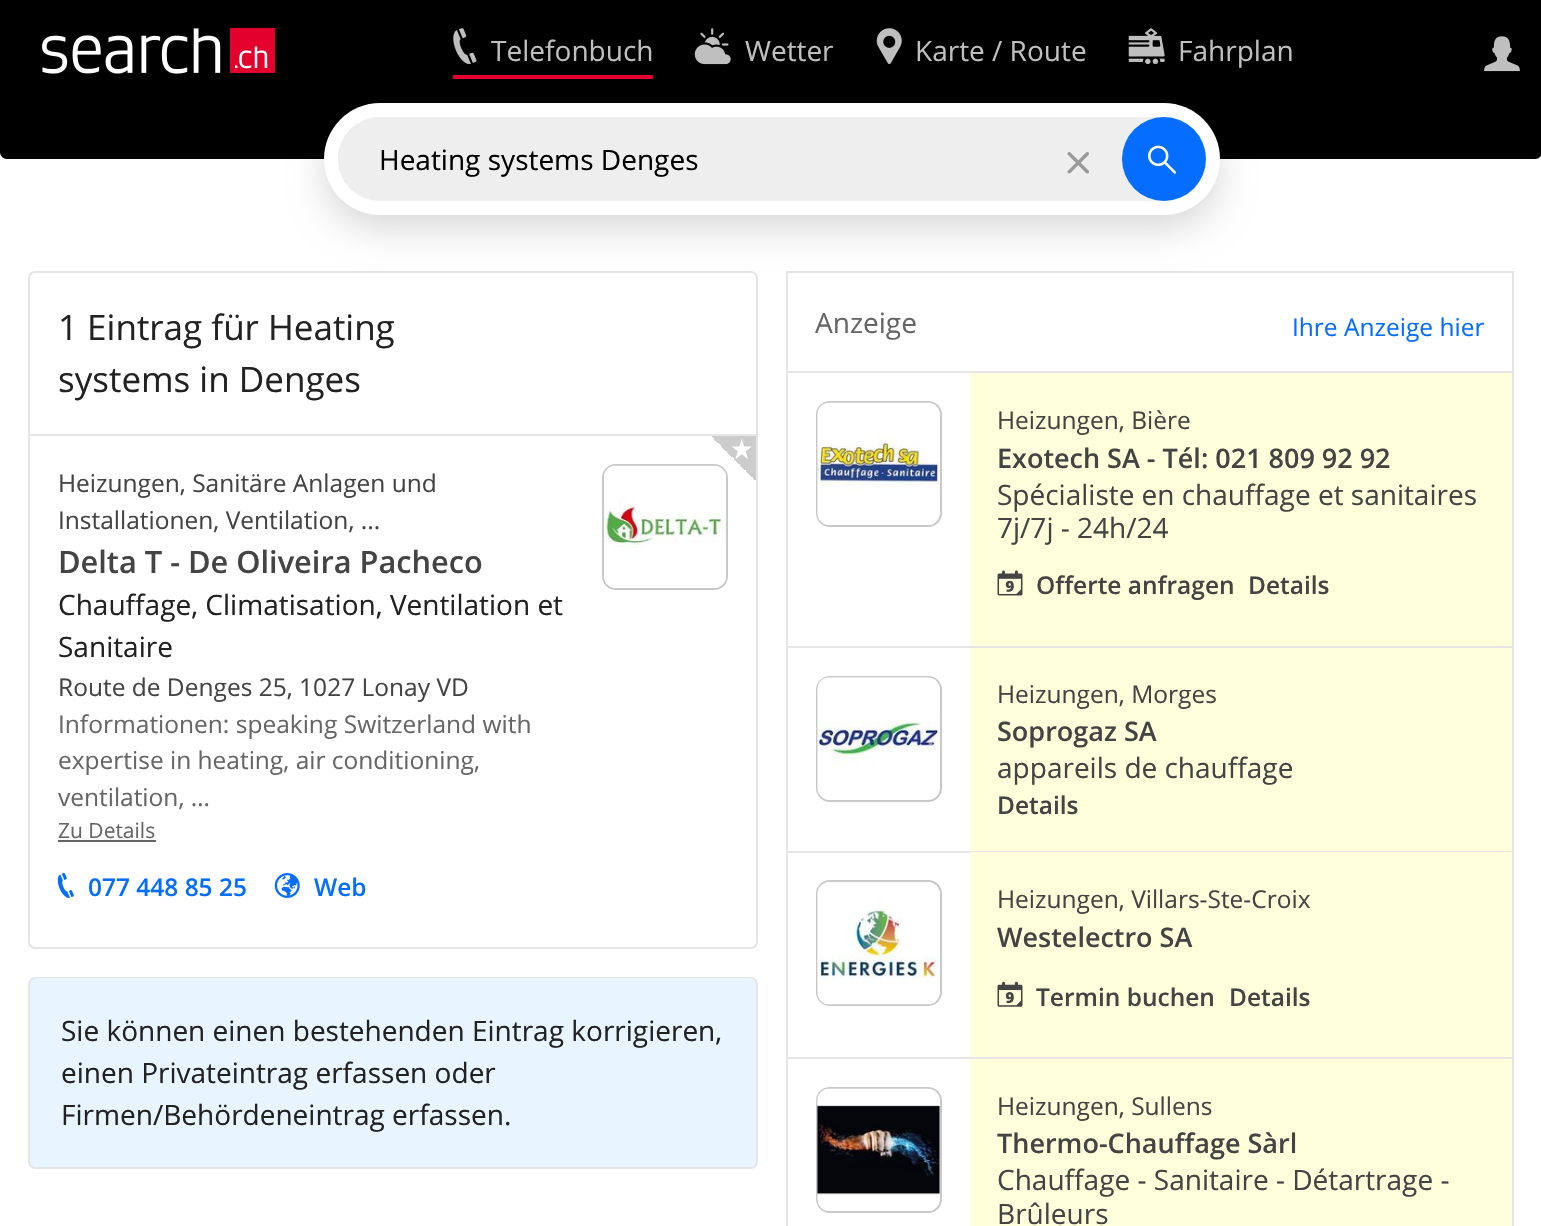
void draw(SkCanvas* canvas) {
	SkPaint fill;
	fill.setAntiAlias(true);
	auto makeFont = [&](const char* family, int weight, float size, bool italic = false) {
		SkFontStyle style(weight, SkFontStyle::kNormal_Width,
			italic ? SkFontStyle::kItalic_Slant : SkFontStyle::kUpright_Slant);
		SkFont result(fontMgr->matchFamilyStyle(family, style), size);
		result.setSubpixel(true);
		return result;
	};
	auto text = [&](const char* s, float x, float y, const SkFont& font) {
		canvas->drawString(s, x, y, font, fill);
	};
	auto box = [&](float l, float t, float r, float b) {
		canvas->drawRect(SkRect::MakeLTRB(l, t, r, b), fill);
	};
	auto roundBox = [&](float l, float t, float r, float b, float radius) {
		canvas->drawRoundRect(SkRect::MakeLTRB(l, t, r, b), radius, radius, fill);
	};
	auto picture = [&](const char* path, float l, float t, float r, float b) {
		auto image = SkImages::DeferredFromEncodedData(SkData::MakeFromFileName(path));
		canvas->drawImageRect(image, SkRect::MakeLTRB(l, t, r, b), SkSamplingOptions());
	};
	canvas->clear(0xFFFFFFFF);
	fill.setColor(0xFF000000);
	box(0, 0, 1541, 103);
	picture("image0.png", 42, 28, 275, 74);
	fill.setColor(0xFFE4002C);
	box(453, 75, 653, 79);
	picture("image1.png", 453, 28, 477, 65);
	picture("image2.png", 694, 28, 731, 65);
	picture("image3.png", 876, 28, 902, 65);
	picture("image4.png", 1128, 28, 1165, 65);
	picture("image5.png", 1484, 36, 1520, 72);
	fill.setColor(0xFF000000);
	canvas->drawPath(SkPathBuilder().moveTo(0, 103).lineTo(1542, 103).lineTo(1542, 152).cubicTo(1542, 156, 1539, 159, 1535, 159).lineTo(7, 159).cubicTo(3, 159, 0, 156, 0, 152).close().detach(), fill);
	fill.setStyle(SkPaint::kStroke_Style);
	fill.setStrokeWidth(2);
	fill.setColor(0xFFE5E5E5);
	canvas->drawRoundRect(SkRect::MakeLTRB(29, 272, 757, 948), 6, 6, fill);
	canvas->drawRect(SkRect::MakeLTRB(787, 272, 1513, 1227), fill);
	fill.setStyle(SkPaint::kFill_Style);
	fill.setColor(0x26000000);
	fill.setMaskFilter(SkMaskFilter::MakeBlur(kNormal_SkBlurStyle, 17.5f));
	canvas->drawRoundRect(SkRect::MakeLTRB(324, 117, 1220, 229), 56, 56, fill);
	fill.setMaskFilter(nullptr);
	fill.setColor(0xFFFFFFFF);
	roundBox(324, 103, 1220, 215, 56);
	fill.setColor(0xFFEEEEEE);
	roundBox(338, 117, 1206, 201, 42);
	roundBox(338, 117, 1038, 201, 42);
	picture("image6.png", 1067, 152, 1089, 174);
	fill.setColor(0xFF056DFF);
	canvas->drawCircle(1164, 159, 42, fill);
	picture("image7.png", 1148, 145, 1177, 174);
	fill.setColor(0xFFE6E6E6);
	box(30, 434, 756, 436);
	fill.setStyle(SkPaint::kStroke_Style);
	fill.setColor(0xFFC8C8C8);
	canvas->drawRoundRect(SkRect::MakeLTRB(603, 465, 727, 589), 13, 13, fill);
	picture("image11.png", 604, 465, 726, 588);
	fill.setStyle(SkPaint::kFill_Style);
	{
		const SkColor colors[] = {0x00FFFFFF, 0x00CCCCCC, 0xFFCCCCCC, 0xFFCCCCCC};
		const float stops[] = {0, 0.5f, 0.5f, 1};
		const SkPoint ends[] = {{711, 481}, {756, 436}};
		fill.setShader(SkGradientShader::MakeLinear(ends, colors, stops, 4, SkTileMode::kClamp));
		fill.setAlpha(255);
	}
	box(711, 436, 756, 480);
	picture("image8.png", 731, 439, 752, 459);
	fill.setShader(nullptr);
	fill.setColor(0xFF666666);
	box(58, 840, 156, 842);
	picture("image9.png", 57, 873, 74, 898);
	picture("image10.png", 274, 873, 300, 898);
	fill.setColor(0xFFE8F4FF);
	canvas->drawRoundRect(SkRect::MakeLTRB(29, 978, 757, 1168), 6, 6, fill);
	fill.setStyle(SkPaint::kStroke_Style);
	fill.setColor(0xFFE5E5E5);
	canvas->drawRoundRect(SkRect::MakeLTRB(29, 978, 757, 1168), 6, 6, fill);
	fill.setStyle(SkPaint::kFill_Style);
	fill.setColor(0xFFE8F4FF);
	roundBox(30, 978, 756, 1167, 7);
	fill.setColor(0xFFE6E6E6);
	box(788, 371, 1512, 373);
	fill.setStyle(SkPaint::kStroke_Style);
	fill.setColor(0xFFC8C8C8);
	canvas->drawRoundRect(SkRect::MakeLTRB(817, 402, 941, 526), 13, 13, fill);
	picture("image12.png", 817, 402, 940, 525);
	fill.setStyle(SkPaint::kFill_Style);
	fill.setColor(0xFFFFFFDB);
	box(970, 373, 1512, 646);
	picture("image13.png", 997, 570, 1023, 596);
	fill.setColor(0xFFE6E6E6);
	box(788, 646, 1512, 648);
	fill.setStyle(SkPaint::kStroke_Style);
	fill.setColor(0xFFC8C8C8);
	canvas->drawRoundRect(SkRect::MakeLTRB(817, 677, 941, 801), 13, 13, fill);
	picture("image14.png", 817, 677, 940, 800);
	fill.setStyle(SkPaint::kFill_Style);
	fill.setColor(0xFFFFFFDB);
	box(970, 648, 1512, 851);
	fill.setColor(0xFFE6E6E6);
	box(788, 851, 1512, 853);
	fill.setStyle(SkPaint::kStroke_Style);
	fill.setColor(0xFFC8C8C8);
	canvas->drawRoundRect(SkRect::MakeLTRB(817, 881, 941, 1005), 13, 13, fill);
	picture("image15.png", 817, 882, 940, 1005);
	fill.setStyle(SkPaint::kFill_Style);
	fill.setColor(0xFFFFFFDB);
	box(970, 852, 1512, 1057);
	picture("image16.png", 997, 981, 1023, 1007);
	fill.setColor(0xFFE6E6E6);
	box(788, 1057, 1512, 1059);
	fill.setStyle(SkPaint::kStroke_Style);
	fill.setColor(0xFFC8C8C8);
	canvas->drawRoundRect(SkRect::MakeLTRB(817, 1088, 941, 1212), 13, 13, fill);
	picture("image17.png", 817, 1088, 940, 1211);
	fill.setStyle(SkPaint::kFill_Style);
	fill.setColor(0xFFFFFFDB);
	box(970, 1059, 1512, 1226);
	auto font1 = makeFont("Open Sans", 400, 28);
	fill.setColor(0xFFBFBFBF);
	text("Telefonbuch", 491, 61, font1);
	text("Wetter", 745, 61, font1);
	text("Karte / Route", 915, 61, font1);
	text("Fahrplan", 1178, 61, font1);
	fill.setColor(0xFF000000);
	text("Heating systems Denges", 379, 170, font1);
	auto font2 = makeFont("Open Sans", 400, 35);
	fill.setColor(0xFF222222);
	text("1 Eintrag für Heating", 58, 340, font2);
	text("systems in Denges", 58, 392, font2);
	auto font3 = makeFont("Open Sans", 400, 24.5f);
	fill.setColor(0xFF444444);
	text("Heizungen, Sanitäre Anlagen und", 58, 492, font3);
	text("Installationen, Ventilation, ...", 58, 529, font3);
	auto font4 = makeFont("Open Sans", 600, 30.75f);
	text("Delta T - De Oliveira Pacheco", 58, 573, font4);
	fill.setColor(0xFF222222);
	text("Chauffage, Climatisation, Ventilation et", 58, 615, font1);
	text("Sanitaire", 58, 657, font1);
	fill.setColor(0xFF444444);
	text("Route de Denges 25, 1027 Lonay VD", 58, 696, font3);
	fill.setColor(0xFF666666);
	text("Informationen: speaking Switzerland with", 58, 733, font3);
	text("expertise in heating, air conditioning,", 58, 769, font3);
	text("ventilation, …", 58, 806, font3);
	auto font5 = makeFont("Open Sans", 400, 21);
	text("Zu Details", 58, 838, font5);
	auto font6 = makeFont("Open Sans", 600, 24.5f);
	fill.setColor(0xFF056DFF);
	text("077 448 85 25", 88, 896, font6);
	text("Web", 314, 896, font6);
	fill.setColor(0xFF222222);
	text("Sie können einen bestehenden Eintrag korrigieren,", 61, 1041, font1);
	text("einen Privateintrag erfassen oder", 61, 1083, font1);
	text("Firmen/Behördeneintrag erfassen.", 61, 1125, font1);
	fill.setColor(0xFF666666);
	text("Anzeige", 815, 333, font1);
	fill.setColor(0xFF056DFF);
	text("Ihre Anzeige hier", 1292, 336, font3);
	fill.setColor(0xFF444444);
	text("Heizungen, Bière", 997, 429, font3);
	auto font7 = makeFont("Open Sans", 600, 27);
	text("Exotech SA - Tél: 021 809 92 92", 997, 468, font7);
	text("Spécialiste en chauffage et sanitaires", 997, 505, font1);
	text("7j/7j - 24h/24", 997, 538, font1);
	text("Offerte anfragen", 1036, 594, font6);
	text("Details", 1248, 594, font6);
	text("Heizungen, Morges", 997, 703, font3);
	text("Soprogaz SA", 997, 741, font7);
	text("appareils de chauffage", 997, 778, font1);
	text("Details", 997, 814, font6);
	text("Heizungen, Villars-Ste-Croix", 997, 908, font3);
	text("Westelectro SA", 997, 947, font7);
	text("Termin buchen", 1036, 1006, font6);
	text("Details", 1229, 1006, font6);
	text("Heizungen, Sullens", 997, 1115, font3);
	text("Thermo-Chauffage Sàrl", 997, 1153, font7);
	text("Chauffage - Sanitaire - Détartrage -", 997, 1190, font1);
	text("Brûleurs", 997, 1224, font1);
}
